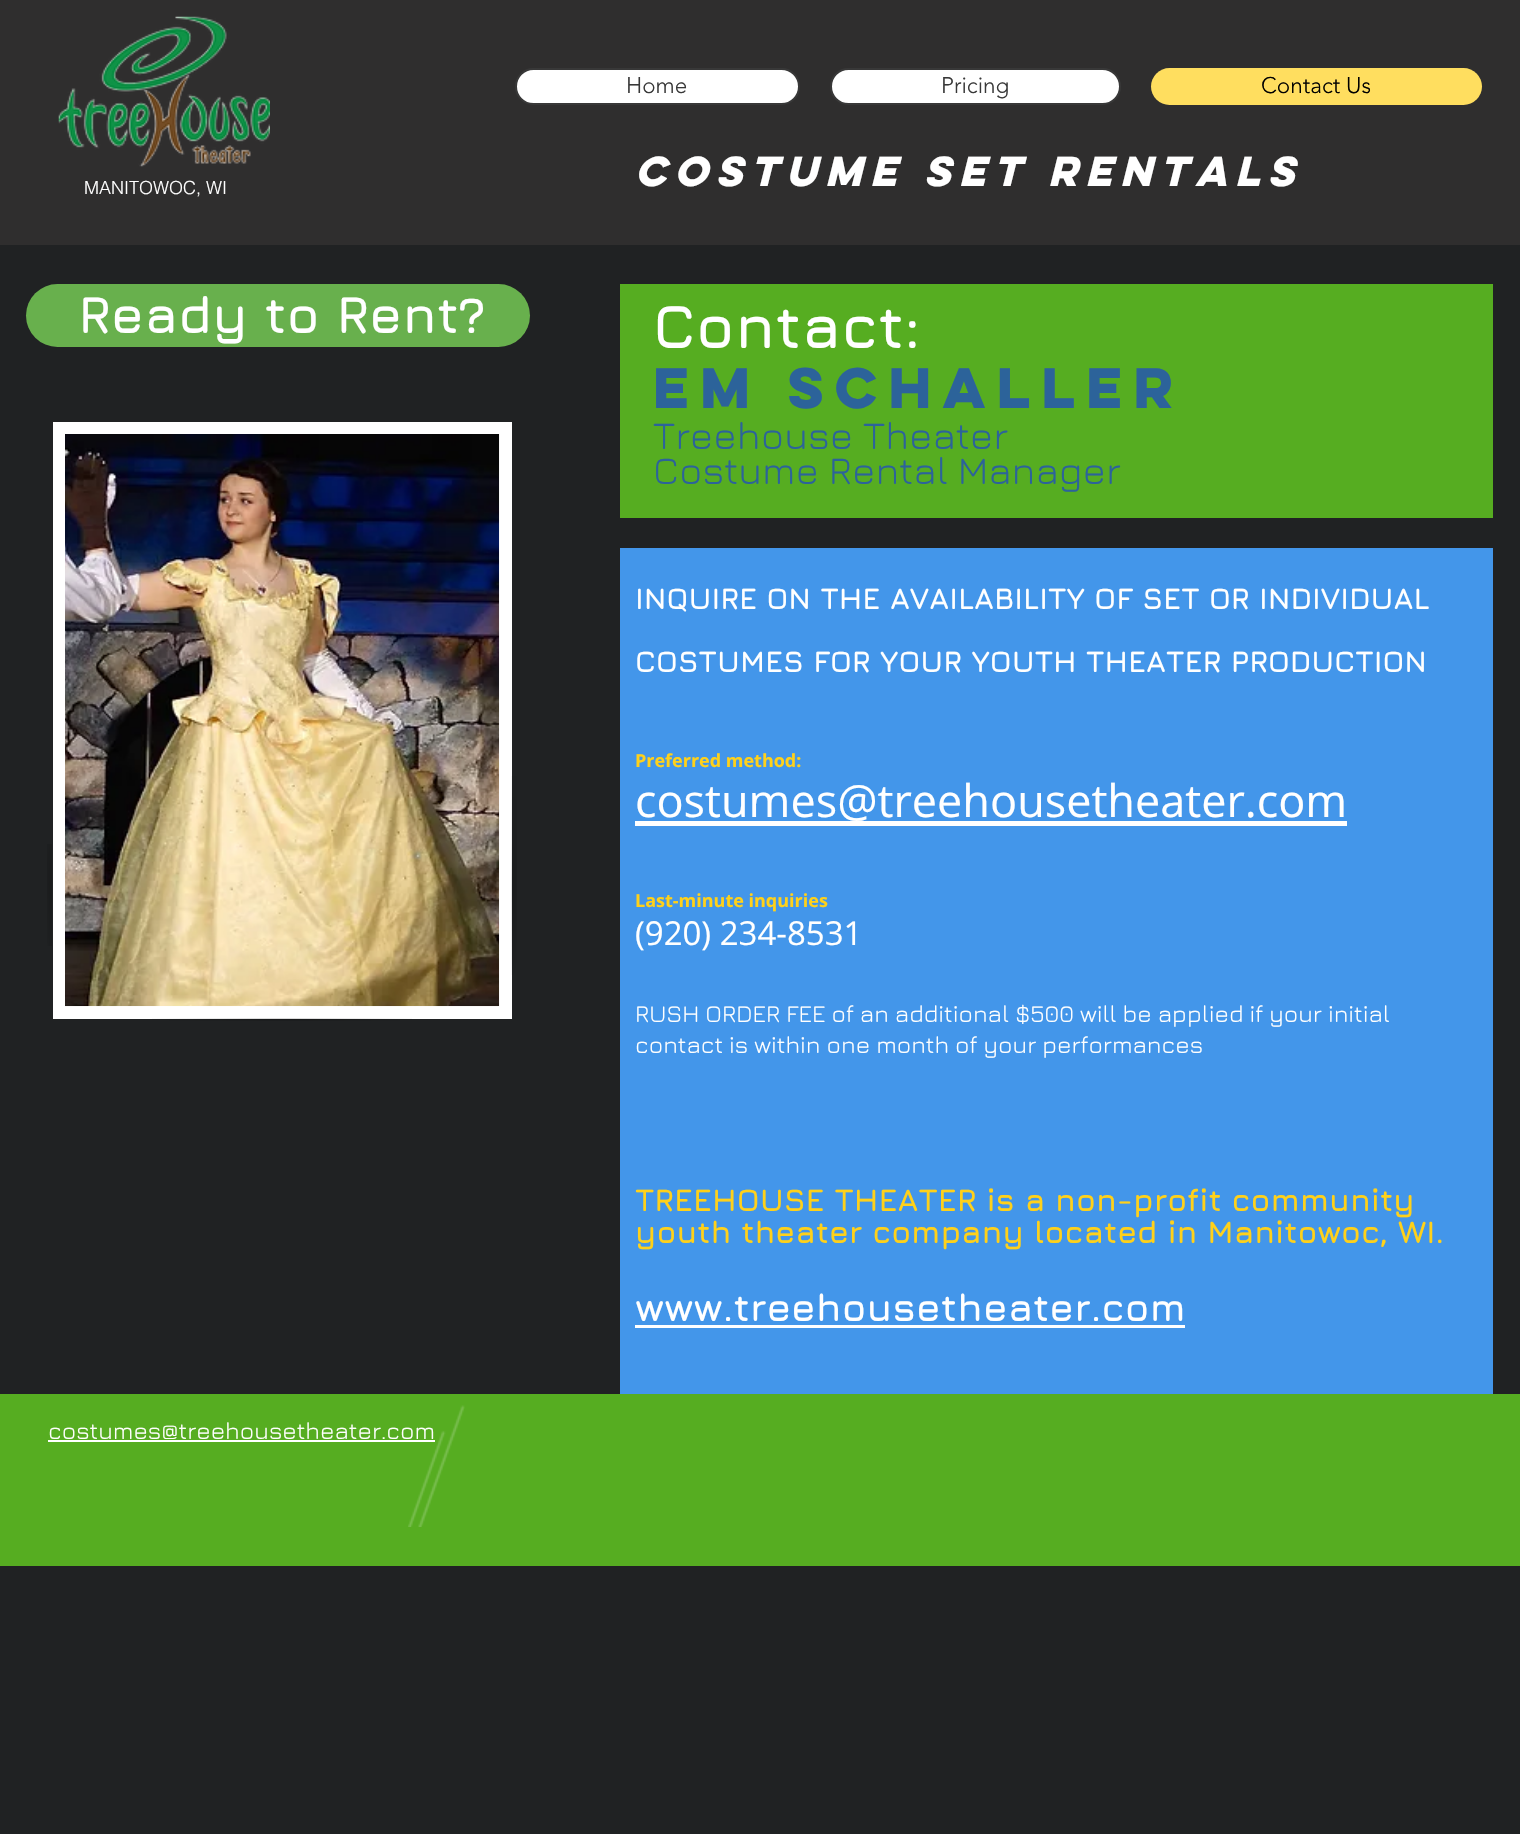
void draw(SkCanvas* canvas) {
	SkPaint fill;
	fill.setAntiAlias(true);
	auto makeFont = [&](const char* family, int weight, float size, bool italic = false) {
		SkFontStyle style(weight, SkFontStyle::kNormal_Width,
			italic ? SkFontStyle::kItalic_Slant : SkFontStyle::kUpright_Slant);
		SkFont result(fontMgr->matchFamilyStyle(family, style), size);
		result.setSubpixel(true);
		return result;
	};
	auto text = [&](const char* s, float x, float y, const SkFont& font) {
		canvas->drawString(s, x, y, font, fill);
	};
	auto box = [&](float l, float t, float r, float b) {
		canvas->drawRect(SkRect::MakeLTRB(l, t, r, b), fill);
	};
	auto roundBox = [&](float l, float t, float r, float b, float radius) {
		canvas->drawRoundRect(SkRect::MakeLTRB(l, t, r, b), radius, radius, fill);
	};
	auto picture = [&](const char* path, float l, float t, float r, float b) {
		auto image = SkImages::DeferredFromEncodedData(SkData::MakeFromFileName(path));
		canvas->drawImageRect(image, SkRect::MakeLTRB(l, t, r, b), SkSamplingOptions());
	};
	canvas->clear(0xFF202223);
	fill.setColor(0xFF2F2E2E);
	box(0, 0, 1520, 245);
	picture("image0.png", 58, 16, 270, 167);
	fill.setColor(0xFFFFFFFF);
	canvas->drawRoundRect(SkRect::MakeLTRB(516, 69, 799, 104), 17.5f, 17.5f, fill);
	fill.setStyle(SkPaint::kStroke_Style);
	fill.setStrokeWidth(2);
	fill.setColor(0xFF383838);
	canvas->drawRoundRect(SkRect::MakeLTRB(516, 69, 799, 104), 17.5f, 17.5f, fill);
	fill.setStyle(SkPaint::kFill_Style);
	fill.setColor(0xFFFFFFFF);
	canvas->drawRoundRect(SkRect::MakeLTRB(831, 69, 1120, 104), 17.5f, 17.5f, fill);
	fill.setStyle(SkPaint::kStroke_Style);
	fill.setColor(0xFF383838);
	canvas->drawRoundRect(SkRect::MakeLTRB(831, 69, 1120, 104), 17.5f, 17.5f, fill);
	fill.setStyle(SkPaint::kFill_Style);
	fill.setColor(0xFFFFDE5F);
	roundBox(1151, 68, 1482, 105, 18.5f);
	fill.setColor(0xFF68B04D);
	roundBox(26, 284, 530, 347, 31.5f);
	fill.setColor(0xFF56AD21);
	box(620, 284, 1493, 518);
	picture("image1.png", 47, 844, 52, 946);
	fill.setColor(0xFFFFFFFF);
	box(53, 422, 512, 1019);
	picture("image2.png", 65, 434, 500, 1007);
	picture("image3.png", 152, 1018, 412, 1021);
	picture("image4.png", 511, 776, 517, 975);
	fill.setColor(0xFF4396EA);
	box(620, 548, 1493, 1394);
	fill.setColor(0xFFFFFFFF);
	box(635, 821, 1347, 826);
	box(635, 1325, 1185, 1328);
	fill.setColor(0xFF56AD21);
	box(0, 1394, 1520, 1566);
	fill.setColor(0xFFFFFFFF);
	box(48, 1440, 435, 1442);
	auto font1 = makeFont("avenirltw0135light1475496", 300, 22.5f);
	fill.setColor(0xFF383838);
	text("Home", 626, 93, font1);
	text("Pricing", 941, 93, font1);
	fill.setColor(0xFF000000);
	text("Contact Us", 1261, 93, font1);
	auto font2 = makeFont("helvetica", 300, 18);
	fill.setColor(0xFFFFFFFF);
	text("MANITOWOC, WI", 84, 194, font2);
	auto font3 = makeFont("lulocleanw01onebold", 700, 37.5f, true);
	text("Costume SET Rentals", 635, 186, font3);
	auto font4 = makeFont("Jura", 700, 52.5f);
	text("Ready to Rent?", 78, 333, font4);
	auto font5 = makeFont("Jura", 700, 61.5f);
	text("Contact:", 653, 348, font5);
	auto font6 = makeFont("lulocleanw01onebold", 700, 51);
	fill.setColor(0xFF2C639A);
	text("em schaller", 653, 408, font6);
	auto font7 = makeFont("Jura", 400, 39);
	text("Treehouse Theater", 653, 449, font7);
	text("Costume Rental Manager", 653, 484, font7);
	auto font8 = makeFont("Jura", 700, 30);
	fill.setColor(0xFFFFFFFF);
	text("INQUIRE ON THE AVAILABILITY OF SET OR INDIVIDUAL", 635, 609, font8);
	text("COSTUMES FOR YOUR YOUTH THEATER PRODUCTION", 635, 672, font8);
	auto font9 = makeFont("Open Sans", 700, 18);
	fill.setColor(0xFFFFD11A);
	text("Preferred method:", 635, 767, font9);
	auto font10 = makeFont("Open Sans", 400, 45);
	fill.setColor(0xFFFFFFFF);
	text("costumes@treehousetheater.com", 635, 817, font10);
	fill.setColor(0xFFFFD11A);
	text("Last-minute inquiries", 635, 907, font9);
	auto font11 = makeFont("Open Sans", 400, 33);
	fill.setColor(0xFFFFFFFF);
	text("(920) 234-8531", 635, 945, font11);
	auto font12 = makeFont("Jura", 400, 24);
	text("RUSH ORDER FEE of an additional $500 will be applied if your initial", 635, 1022, font12);
	text("contact is within one month of your performances", 635, 1053, font12);
	auto font13 = makeFont("Jura", 700, 31.5f);
	fill.setColor(0xFFFFD11A);
	text("TREEHOUSE THEATER is a non-profit community", 635, 1211, font13);
	text("youth theater company located in Manitowoc, WI.", 635, 1243, font13);
	auto font14 = makeFont("Jura", 700, 39);
	fill.setColor(0xFFFFFFFF);
	text("www.treehousetheater.com", 635, 1321, font14);
	text("costumes@treehousetheater.com", 48, 1439, font12);
	picture("image5.png", 408, 1405, 465, 1527);
}
